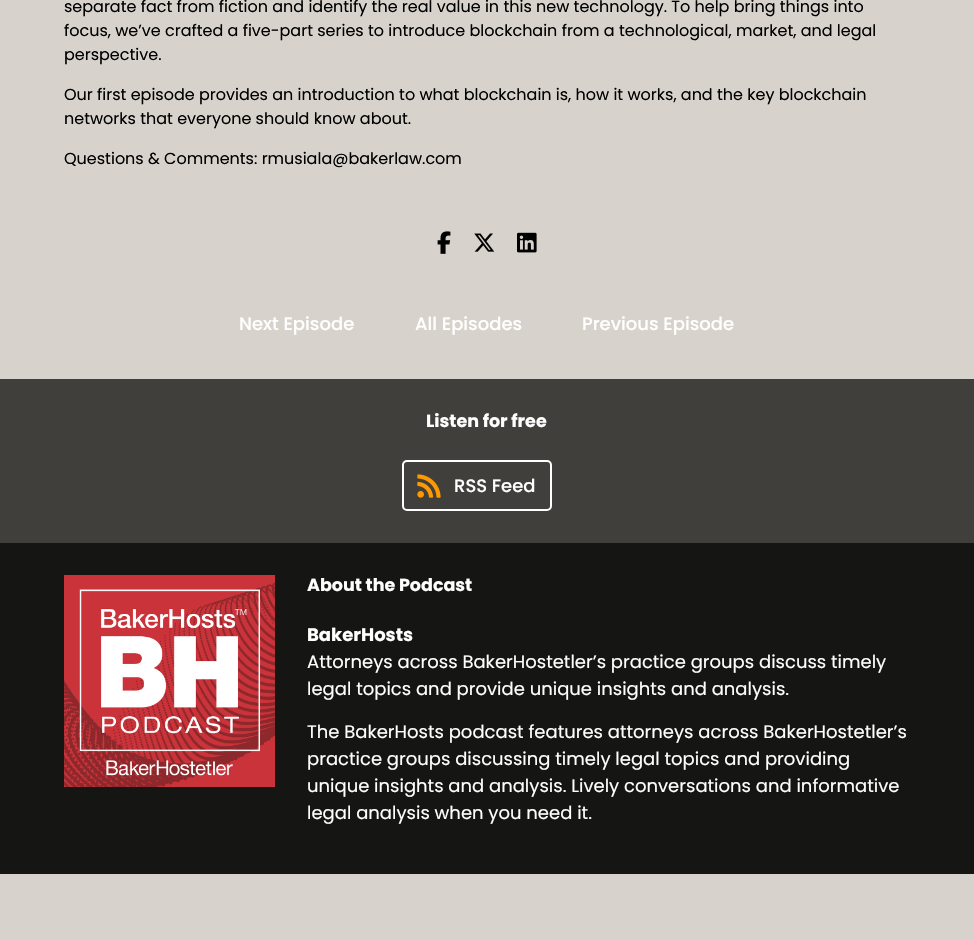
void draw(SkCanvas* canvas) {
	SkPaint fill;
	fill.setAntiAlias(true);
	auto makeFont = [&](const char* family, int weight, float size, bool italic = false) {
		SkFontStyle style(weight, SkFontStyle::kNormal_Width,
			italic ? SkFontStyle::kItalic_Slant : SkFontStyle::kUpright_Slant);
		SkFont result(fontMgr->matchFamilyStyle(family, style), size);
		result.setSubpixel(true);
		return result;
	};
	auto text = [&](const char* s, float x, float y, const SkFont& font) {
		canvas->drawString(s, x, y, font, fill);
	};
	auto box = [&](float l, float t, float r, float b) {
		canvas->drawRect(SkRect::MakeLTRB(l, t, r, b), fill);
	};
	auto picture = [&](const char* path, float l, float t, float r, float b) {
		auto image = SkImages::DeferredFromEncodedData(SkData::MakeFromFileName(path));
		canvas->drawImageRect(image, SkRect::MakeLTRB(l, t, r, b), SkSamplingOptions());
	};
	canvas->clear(0xFFD7D2CB);
	picture("image0.png", 437, 231, 451, 254);
	picture("image1.png", 474, 233, 495, 252);
	picture("image2.png", 517, 232, 537, 253);
	fill.setColor(0xFF403F3C);
	box(0, 379, 974, 543);
	fill.setStyle(SkPaint::kStroke_Style);
	fill.setStrokeWidth(2);
	fill.setColor(0xFFFFFFFF);
	canvas->drawRoundRect(SkRect::MakeLTRB(403, 461, 551, 510), 4, 4, fill);
	picture("image3.png", 417, 474, 441, 498);
	fill.setStyle(SkPaint::kFill_Style);
	fill.setColor(0xFF151514);
	box(0, 543, 974, 874);
	picture("image4.png", 64, 575, 275, 787);
	auto font1 = makeFont("Poppins", 400, 16);
	fill.setColor(0xFF000000);
	text("separate fact from fiction and identify the real value in this new technology. To help bring things into", 64, 12, font1);
	text("focus, we’ve crafted a five-part series to introduce blockchain from a technological, market, and legal", 64, 36, font1);
	text("perspective.", 64, 60, font1);
	text("Our first episode provides an introduction to what blockchain is, how it works, and the key blockchain", 64, 100, font1);
	text("networks that everyone should know about.", 64, 124, font1);
	text("Questions & Comments: rmusiala@bakerlaw.com", 64, 164, font1);
	auto font2 = makeFont("Poppins", 500, 18);
	fill.setColor(0xFFFFFFFF);
	text("Next Episode", 239, 330, font2);
	text("All Episodes", 415, 330, font2);
	text("Previous Episode", 582, 330, font2);
	auto font3 = makeFont("Poppins", 700, 17.5f);
	text("Listen for free", 426, 427, font3);
	text("RSS Feed", 454, 492, font2);
	text("About the Podcast", 307, 591, font3);
	auto font4 = makeFont("Poppins", 700, 18);
	text("BakerHosts", 307, 641, font4);
	auto font5 = makeFont("Poppins", 400, 18);
	text("Attorneys across BakerHostetler’s practice groups discuss timely", 307, 668, font5);
	text("legal topics and provide unique insights and analysis.", 307, 695, font5);
	text("The BakerHosts podcast features attorneys across BakerHostetler’s", 307, 738, font5);
	text("practice groups discussing timely legal topics and providing", 307, 765, font5);
	text("unique insights and analysis. Lively conversations and informative", 307, 792, font5);
	text("legal analysis when you need it.", 307, 819, font5);
}
